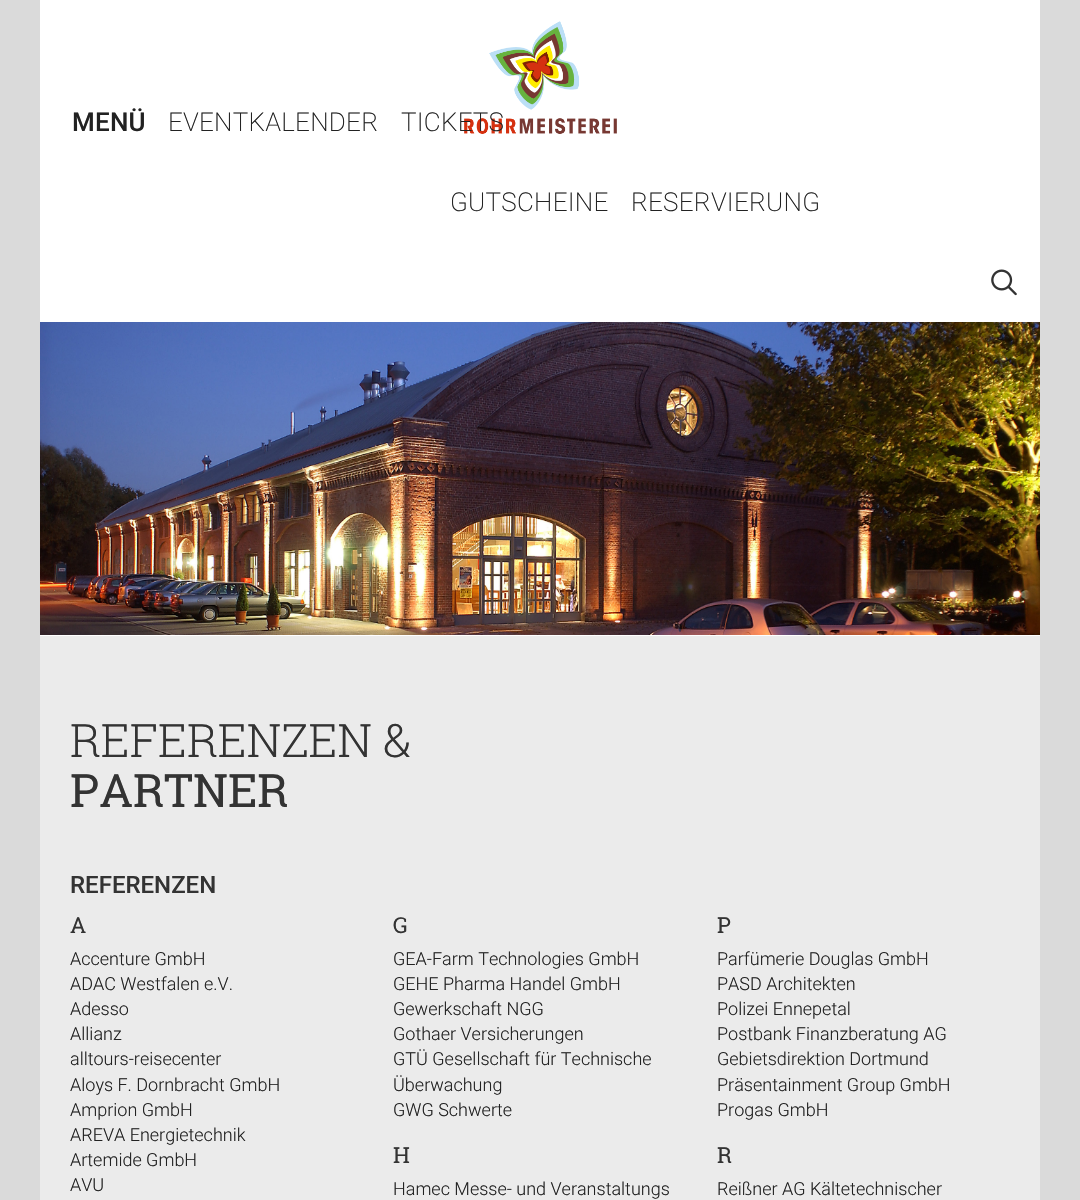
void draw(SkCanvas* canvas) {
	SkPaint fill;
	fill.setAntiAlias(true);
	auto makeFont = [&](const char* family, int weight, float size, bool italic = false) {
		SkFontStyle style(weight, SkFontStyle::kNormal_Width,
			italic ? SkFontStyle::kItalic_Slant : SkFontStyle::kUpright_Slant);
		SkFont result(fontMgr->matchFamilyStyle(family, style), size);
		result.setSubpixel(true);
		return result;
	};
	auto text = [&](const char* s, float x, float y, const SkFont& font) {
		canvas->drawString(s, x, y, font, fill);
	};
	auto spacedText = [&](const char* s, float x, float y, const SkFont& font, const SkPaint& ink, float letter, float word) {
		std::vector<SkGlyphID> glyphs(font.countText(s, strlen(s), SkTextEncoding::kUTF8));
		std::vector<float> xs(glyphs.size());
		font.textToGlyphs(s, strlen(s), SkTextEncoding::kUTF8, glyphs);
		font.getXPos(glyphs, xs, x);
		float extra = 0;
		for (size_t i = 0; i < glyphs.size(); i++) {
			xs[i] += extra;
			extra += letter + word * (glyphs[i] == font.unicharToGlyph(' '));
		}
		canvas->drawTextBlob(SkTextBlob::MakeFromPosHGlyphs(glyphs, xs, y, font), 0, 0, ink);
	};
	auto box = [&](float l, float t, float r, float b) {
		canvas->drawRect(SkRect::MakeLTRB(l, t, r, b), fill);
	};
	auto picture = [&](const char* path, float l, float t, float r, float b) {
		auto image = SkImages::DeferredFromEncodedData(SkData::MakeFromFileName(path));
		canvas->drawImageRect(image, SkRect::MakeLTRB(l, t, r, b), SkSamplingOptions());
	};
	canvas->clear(0xFFDADADA);
	fill.setColor(0xFFFFFFFF);
	box(40, 0, 1040, 636);
	picture("image0.png", 464, 21, 617, 134);
	picture("image1.png", 991, 269, 1017, 296);
	picture("image2.png", 40, 322, 1040, 635);
	fill.setColor(0xFFEBEBEB);
	box(40, 636, 1040, 1200);
	auto font1 = makeFont("Roboto", 500, 26);
	fill.setColor(0xFF222222);
	spacedText("MENÜ", 72, 131, font1, fill, 0.25f, 0);
	auto font2 = makeFont("Roboto", 200, 26);
	spacedText("EVENTKALENDER", 168, 131, font2, fill, 0.25f, 0);
	spacedText("TICKETS", 401, 131, font2, fill, 0.25f, 0);
	spacedText("GUTSCHEINE", 450, 211, font2, fill, 0.25f, 0);
	spacedText("RESERVIERUNG", 631, 211, font2, fill, 0.25f, 0);
	auto font3 = makeFont("Roboto Slab", 300, 46);
	fill.setColor(0xFF333333);
	text("REFERENZEN &", 70, 757, font3);
	auto font4 = makeFont("Roboto Slab", 400, 46);
	text("PARTNER", 70, 807, font4);
	auto font5 = makeFont("Roboto", 500, 24);
	text("REFERENZEN", 70, 893, font5);
	auto font6 = makeFont("Roboto Slab", 400, 22);
	text("A", 70, 933, font6);
	auto font7 = makeFont("Roboto", 300, 18);
	fill.setColor(0xFF222222);
	text("Accenture GmbH", 70, 965, font7);
	text("ADAC Westfalen e.V.", 70, 990, font7);
	text("Adesso", 70, 1015, font7);
	text("Allianz", 70, 1040, font7);
	text("alltours-reisecenter", 70, 1065, font7);
	text("Aloys F. Dornbracht GmbH", 70, 1091, font7);
	text("Amprion GmbH", 70, 1116, font7);
	text("AREVA Energietechnik", 70, 1141, font7);
	text("Artemide GmbH", 70, 1166, font7);
	text("AVU", 70, 1191, font7);
	fill.setColor(0xFF333333);
	text("G", 393, 933, font6);
	fill.setColor(0xFF222222);
	text("GEA-Farm Technologies GmbH", 393, 965, font7);
	text("GEHE Pharma Handel GmbH", 393, 990, font7);
	text("Gewerkschaft NGG", 393, 1015, font7);
	text("Gothaer Versicherungen", 393, 1040, font7);
	text("GTÜ Gesellschaft für Technische", 393, 1065, font7);
	text("Überwachung", 393, 1091, font7);
	text("GWG Schwerte", 393, 1116, font7);
	fill.setColor(0xFF333333);
	text("H", 393, 1163, font6);
	fill.setColor(0xFF222222);
	text("Hamec Messe- und Veranstaltungs", 393, 1195, font7);
	fill.setColor(0xFF333333);
	text("P", 717, 933, font6);
	fill.setColor(0xFF222222);
	text("Parfümerie Douglas GmbH", 717, 965, font7);
	text("PASD Architekten", 717, 990, font7);
	text("Polizei Ennepetal", 717, 1015, font7);
	text("Postbank Finanzberatung AG", 717, 1040, font7);
	text("Gebietsdirektion Dortmund", 717, 1065, font7);
	text("Präsentainment Group GmbH", 717, 1091, font7);
	text("Progas GmbH", 717, 1116, font7);
	fill.setColor(0xFF333333);
	text("R", 717, 1163, font6);
	fill.setColor(0xFF222222);
	text("Reißner AG Kältetechnischer", 717, 1195, font7);
}
